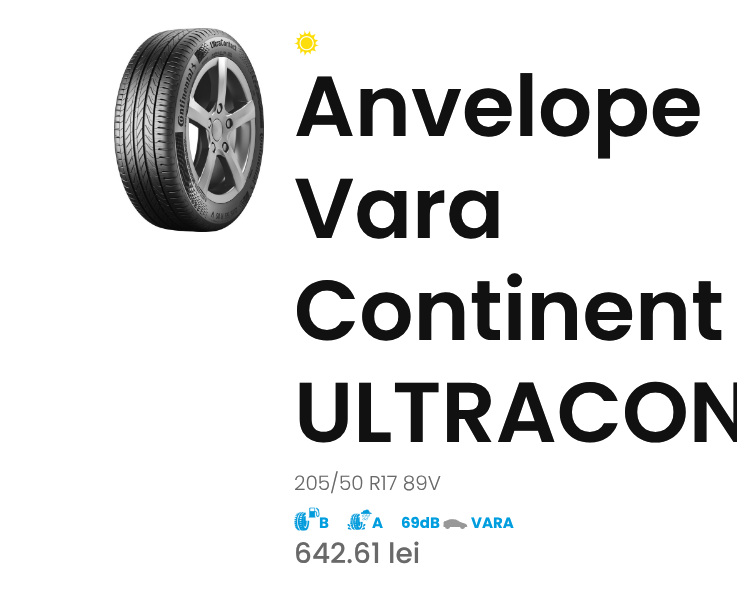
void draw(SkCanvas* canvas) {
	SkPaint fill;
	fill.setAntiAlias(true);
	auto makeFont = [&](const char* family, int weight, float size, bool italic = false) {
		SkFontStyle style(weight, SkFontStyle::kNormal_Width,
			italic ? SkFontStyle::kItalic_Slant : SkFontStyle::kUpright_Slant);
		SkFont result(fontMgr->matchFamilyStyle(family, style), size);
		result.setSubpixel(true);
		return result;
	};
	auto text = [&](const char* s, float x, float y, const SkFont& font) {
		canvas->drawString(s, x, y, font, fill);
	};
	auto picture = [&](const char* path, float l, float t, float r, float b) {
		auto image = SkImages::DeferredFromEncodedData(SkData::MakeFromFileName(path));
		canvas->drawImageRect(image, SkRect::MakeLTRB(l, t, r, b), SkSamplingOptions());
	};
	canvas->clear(0xFFFFFFFF);
	picture("image0.png", 114, 28, 264, 232);
	picture("image1.png", 294, 30, 319, 56);
	picture("image2.png", 294, 507, 320, 531);
	picture("image3.png", 347, 509, 372, 530);
	picture("image4.png", 443, 519, 468, 529);
	auto font1 = makeFont("Poppins", 600, 85);
	fill.setColor(0xFF111111);
	text("Anvelope", 294, 136, font1);
	text("Vara", 294, 238, font1);
	text("Continent", 294, 340, font1);
	text("ULTRACON", 294, 442, font1);
	auto font2 = makeFont("Poppins", 300, 20);
	fill.setColor(0xFF696969);
	text("205/50 R17 89V", 294, 490, font2);
	auto font3 = makeFont("Poppins", 700, 15);
	fill.setColor(0xFF009EDF);
	text("B", 319, 528, font3);
	text("A", 372, 528, font3);
	text("69dB", 401, 528, font3);
	text("VARA", 471, 528, font3);
	auto font4 = makeFont("Poppins", 500, 28);
	fill.setColor(0xFF696969);
	text("642.61 lei", 294, 563, font4);
}
